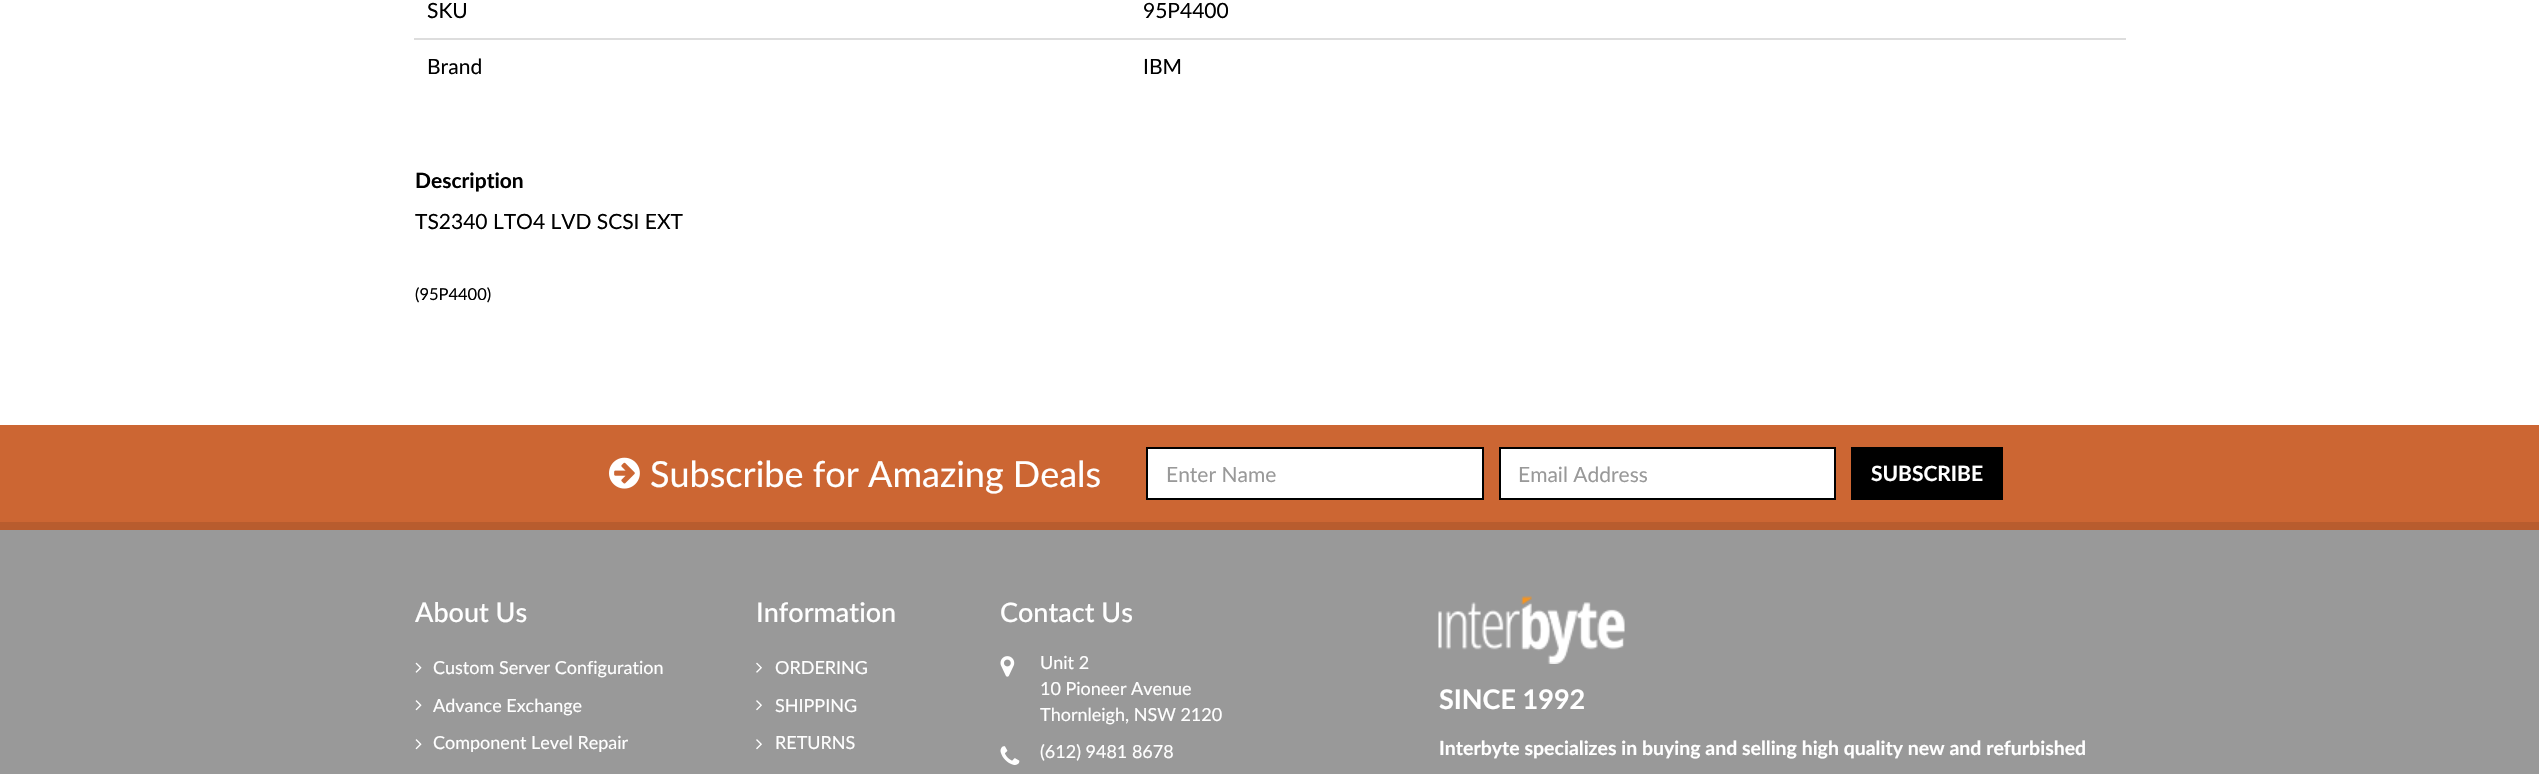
void draw(SkCanvas* canvas) {
	SkPaint fill;
	fill.setAntiAlias(true);
	auto makeFont = [&](const char* family, int weight, float size, bool italic = false) {
		SkFontStyle style(weight, SkFontStyle::kNormal_Width,
			italic ? SkFontStyle::kItalic_Slant : SkFontStyle::kUpright_Slant);
		SkFont result(fontMgr->matchFamilyStyle(family, style), size);
		result.setSubpixel(true);
		return result;
	};
	auto text = [&](const char* s, float x, float y, const SkFont& font) {
		canvas->drawString(s, x, y, font, fill);
	};
	auto box = [&](float l, float t, float r, float b) {
		canvas->drawRect(SkRect::MakeLTRB(l, t, r, b), fill);
	};
	auto picture = [&](const char* path, float l, float t, float r, float b) {
		auto image = SkImages::DeferredFromEncodedData(SkData::MakeFromFileName(path));
		canvas->drawImageRect(image, SkRect::MakeLTRB(l, t, r, b), SkSamplingOptions());
	};
	canvas->clear(0xFFFFFFFF);
	fill.setColor(0xFFDDDDDD);
	box(414, 38, 2126, 40);
	fill.setColor(0xFFCC6633);
	box(0, 425, 2539, 522);
	fill.setColor(0xFFB85C2E);
	box(0, 522, 2539, 530);
	picture("image0.png", 609, 457, 640, 489);
	fill.setColor(0xFFFFFFFF);
	canvas->drawRect(SkRect::MakeLTRB(1147, 448, 1483, 499), fill);
	fill.setStyle(SkPaint::kStroke_Style);
	fill.setStrokeWidth(2);
	fill.setColor(0xFF000000);
	canvas->drawRect(SkRect::MakeLTRB(1147, 448, 1483, 499), fill);
	fill.setStyle(SkPaint::kFill_Style);
	fill.setColor(0xFFFFFFFF);
	canvas->drawRect(SkRect::MakeLTRB(1500, 448, 1835, 499), fill);
	fill.setStyle(SkPaint::kStroke_Style);
	fill.setColor(0xFF000000);
	canvas->drawRect(SkRect::MakeLTRB(1500, 448, 1835, 499), fill);
	fill.setStyle(SkPaint::kFill_Style);
	box(1851, 447, 2003, 500);
	fill.setColor(0xFF999999);
	box(0, 530, 2539, 774);
	picture("image1.png", 415, 662, 422, 673);
	picture("image2.png", 415, 700, 422, 711);
	picture("image2.png", 415, 739, 422, 750);
	picture("image3.png", 756, 662, 762, 673);
	picture("image4.png", 756, 700, 762, 711);
	picture("image4.png", 756, 739, 762, 750);
	picture("image5.png", 1000, 656, 1015, 677);
	picture("image6.png", 1000, 746, 1020, 765);
	picture("image7.png", 1438, 596, 1625, 664);
	auto font1 = makeFont("Lato", 400, 21);
	fill.setColor(0xFF000000);
	text("SKU", 427, 18, font1);
	text("95P4400", 1143, 18, font1);
	text("Brand", 427, 74, font1);
	text("IBM", 1143, 74, font1);
	auto font2 = makeFont("Lato", 700, 21);
	text("Description", 415, 188, font2);
	text("TS2340 LTO4 LVD SCSI EXT", 415, 229, font1);
	auto font3 = makeFont("Lato", 400, 16.5f);
	text("(95P4400)", 415, 300, font3);
	auto font4 = makeFont("Lato", 400, 36);
	fill.setColor(0xFFFFFFFF);
	text("Subscribe for Amazing Deals", 650, 487, font4);
	fill.setColor(0xFF999999);
	text("Enter Name", 1166, 482, font1);
	text("Email Address", 1518, 482, font1);
	fill.setColor(0xFFFFFFFF);
	text("SUBSCRIBE", 1871, 481, font2);
	auto font5 = makeFont("Lato", 500, 27);
	text("About Us", 415, 622, font5);
	auto font6 = makeFont("Lato", 400, 18);
	text("Custom Server Configuration", 433, 674, font6);
	text("Advance Exchange", 433, 712, font6);
	text("Component Level Repair", 433, 749, font6);
	text("Information", 756, 622, font5);
	text("ORDERING", 775, 674, font6);
	text("SHIPPING", 775, 712, font6);
	text("RETURNS", 775, 749, font6);
	text("Contact Us", 1000, 622, font5);
	text("Unit 2", 1040, 669, font6);
	text("10 Pioneer Avenue", 1040, 695, font6);
	text("Thornleigh, NSW 2120", 1040, 721, font6);
	text("(612) 9481 8678", 1040, 758, font6);
	auto font7 = makeFont("Lato", 700, 27);
	text("SINCE 1992", 1439, 709, font7);
	auto font8 = makeFont("Lato", 700, 19.5f);
	text("Interbyte specializes in buying and selling high quality new and refurbished", 1439, 755, font8);
}
